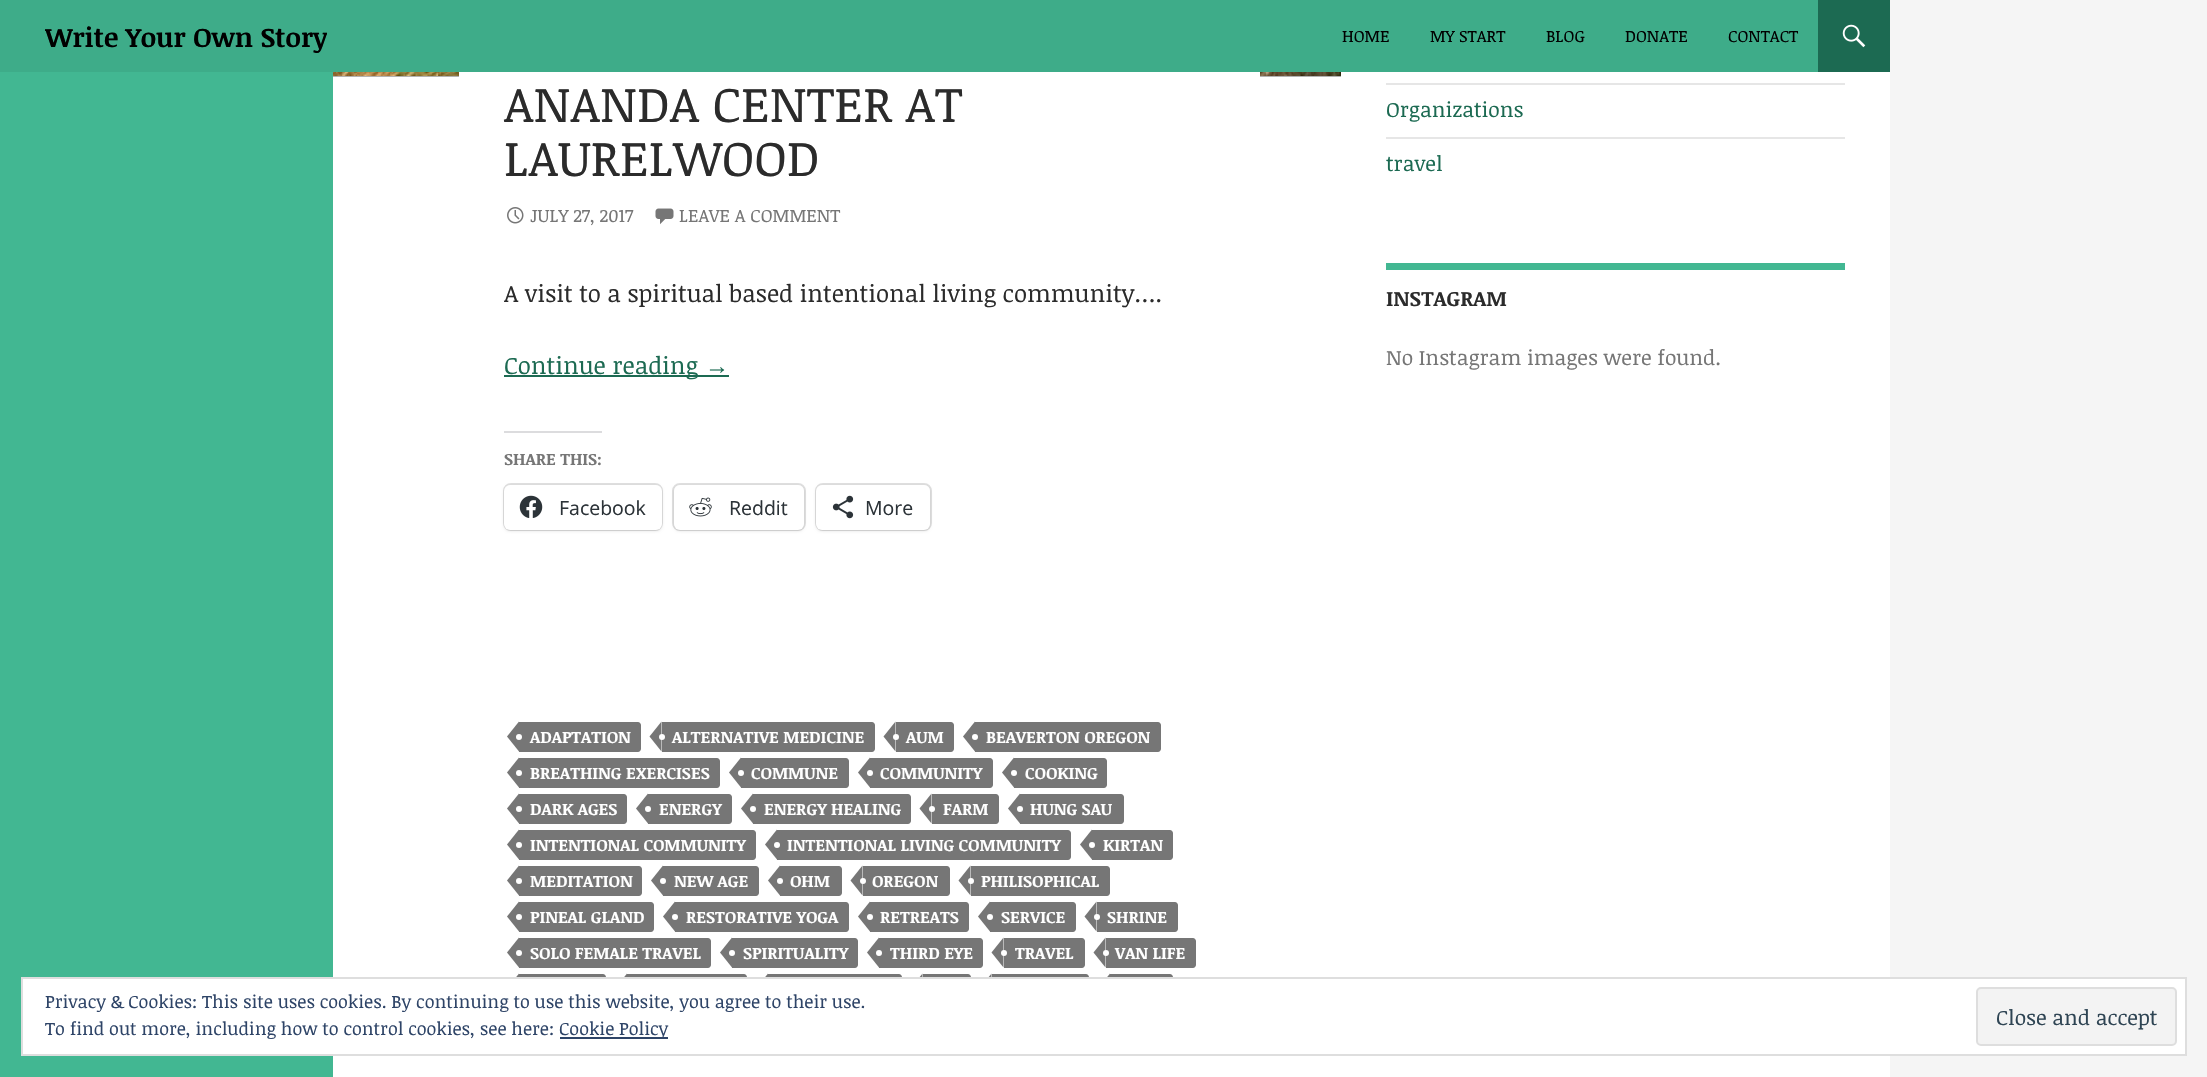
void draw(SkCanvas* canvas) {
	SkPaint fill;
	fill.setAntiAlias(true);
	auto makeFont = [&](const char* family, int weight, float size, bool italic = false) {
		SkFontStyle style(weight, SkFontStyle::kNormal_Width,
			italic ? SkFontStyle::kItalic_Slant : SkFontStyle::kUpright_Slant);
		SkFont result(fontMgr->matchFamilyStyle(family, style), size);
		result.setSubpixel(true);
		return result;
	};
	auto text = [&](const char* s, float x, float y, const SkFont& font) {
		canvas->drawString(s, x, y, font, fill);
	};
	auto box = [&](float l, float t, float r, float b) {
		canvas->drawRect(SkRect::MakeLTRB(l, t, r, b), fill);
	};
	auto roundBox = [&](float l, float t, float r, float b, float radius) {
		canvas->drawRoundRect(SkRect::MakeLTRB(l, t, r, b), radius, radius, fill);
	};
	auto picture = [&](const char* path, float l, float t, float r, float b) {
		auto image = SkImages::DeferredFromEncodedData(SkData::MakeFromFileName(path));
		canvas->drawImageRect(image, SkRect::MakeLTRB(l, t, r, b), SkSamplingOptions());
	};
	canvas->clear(0xFFF5F5F5);
	fill.setColor(0xFFFFFFFF);
	box(333, 72, 1890, 1077);
	fill.setColor(0xFF3EAC89);
	box(0, 0, 1818, 72);
	fill.setColor(0xFF1C6A52);
	box(1818, 0, 1890, 72);
	picture("image0.png", 1842, 24, 1866, 48);
	fill.setColor(0xFF42B792);
	box(0, 72, 333, 1077);
	fill.setColor(0xFFB2B2B2);
	box(333, 76, 1341, 77);
	picture("image1.png", 333, 72, 1341, 76);
	fill.setColor(0xFFFFFFFF);
	box(459, 72, 1260, 77);
	picture("image2.png", 507, 207, 524, 224);
	picture("image3.png", 655, 208, 674, 225);
	fill.setColor(0xFF1C6A52);
	box(504, 375, 729, 377);
	fill.setColor(0xFFDCDCDE);
	box(504, 431, 602, 433);
	fill.setStyle(SkPaint::kStroke_Style);
	fill.setStrokeWidth(2);
	fill.setColor(0xFFE0E0E0);
	canvas->drawRoundRect(SkRect::MakeLTRB(504, 484, 662, 530), 7, 7, fill);
	fill.setStyle(SkPaint::kFill_Style);
	fill.setColor(0x1F000000);
	fill.setMaskFilter(SkMaskFilter::MakeBlur(kNormal_SkBlurStyle, 1.5f));
	canvas->drawRoundRect(SkRect::MakeLTRB(504, 486, 662, 531), 6, 6, fill);
	fill.setMaskFilter(nullptr);
	fill.setColor(0xFFFFFFFF);
	roundBox(504, 485, 662, 530, 6);
	picture("image4.png", 519, 495, 543, 518);
	fill.setStyle(SkPaint::kStroke_Style);
	fill.setColor(0xFFE0E0E0);
	canvas->drawRoundRect(SkRect::MakeLTRB(673, 484, 805, 530), 7, 7, fill);
	fill.setStyle(SkPaint::kFill_Style);
	fill.setColor(0x1F000000);
	fill.setMaskFilter(SkMaskFilter::MakeBlur(kNormal_SkBlurStyle, 1.5f));
	canvas->drawRoundRect(SkRect::MakeLTRB(674, 486, 804, 531), 6, 6, fill);
	fill.setMaskFilter(nullptr);
	fill.setColor(0xFFFFFFFF);
	roundBox(674, 485, 804, 530, 6);
	picture("image5.png", 689, 497, 712, 517);
	fill.setStyle(SkPaint::kStroke_Style);
	fill.setColor(0xFFE0E0E0);
	canvas->drawRoundRect(SkRect::MakeLTRB(816, 484, 931, 530), 7, 7, fill);
	fill.setStyle(SkPaint::kFill_Style);
	fill.setColor(0x1F000000);
	fill.setMaskFilter(SkMaskFilter::MakeBlur(kNormal_SkBlurStyle, 1.5f));
	canvas->drawRoundRect(SkRect::MakeLTRB(816, 486, 930, 531), 6, 6, fill);
	fill.setMaskFilter(nullptr);
	fill.setColor(0xFFFFFFFF);
	roundBox(816, 485, 930, 530, 6);
	picture("image6.png", 832, 495, 854, 519);
	fill.setColor(0xFF767676);
	canvas->drawPath(SkPathBuilder().moveTo(519, 722).lineTo(638, 722).cubicTo(639.5f, 722, 641, 723.5f, 641, 725).lineTo(641, 749).cubicTo(641, 750.5f, 639.5f, 752, 638, 752).lineTo(519, 752).close().detach(), fill);
	canvas->drawPath(SkPathBuilder().moveTo(519, 721.5f).lineTo(519, 751.5f).lineTo(507, 736.5f).close().detach(), fill);
	fill.setColor(0xFFFFFFFF);
	canvas->drawCircle(519, 737, 3, fill);
	fill.setColor(0xFF767676);
	canvas->drawPath(SkPathBuilder().moveTo(662, 722).lineTo(872, 722).cubicTo(873.5f, 722, 875, 723.5f, 875, 725).lineTo(875, 749).cubicTo(875, 750.5f, 873.5f, 752, 872, 752).lineTo(662, 752).close().detach(), fill);
	canvas->drawPath(SkPathBuilder().moveTo(661.5f, 721.5f).lineTo(661.5f, 751.5f).lineTo(649.5f, 736.5f).close().detach(), fill);
	fill.setColor(0xFFFFFFFF);
	canvas->drawCircle(662, 737, 3, fill);
	fill.setColor(0xFF767676);
	canvas->drawPath(SkPathBuilder().moveTo(896, 722).lineTo(951, 722).cubicTo(952.5f, 722, 954, 723.5f, 954, 725).lineTo(954, 749).cubicTo(954, 750.5f, 952.5f, 752, 951, 752).lineTo(896, 752).close().detach(), fill);
	canvas->drawPath(SkPathBuilder().moveTo(895.5f, 721.5f).lineTo(895.5f, 751.5f).lineTo(883.5f, 736.5f).close().detach(), fill);
	fill.setColor(0xFFFFFFFF);
	canvas->drawCircle(896, 737, 3, fill);
	fill.setColor(0xFF767676);
	canvas->drawPath(SkPathBuilder().moveTo(975, 722).lineTo(1158, 722).cubicTo(1159.5f, 722, 1161, 723.5f, 1161, 725).lineTo(1161, 749).cubicTo(1161, 750.5f, 1159.5f, 752, 1158, 752).lineTo(975, 752).close().detach(), fill);
	canvas->drawPath(SkPathBuilder().moveTo(975, 721.5f).lineTo(975, 751.5f).lineTo(963, 736.5f).close().detach(), fill);
	fill.setColor(0xFFFFFFFF);
	canvas->drawCircle(975, 737, 3, fill);
	fill.setColor(0xFF767676);
	canvas->drawPath(SkPathBuilder().moveTo(519, 758).lineTo(717, 758).cubicTo(718.5f, 758, 720, 759.5f, 720, 761).lineTo(720, 785).cubicTo(720, 786.5f, 718.5f, 788, 717, 788).lineTo(519, 788).close().detach(), fill);
	canvas->drawPath(SkPathBuilder().moveTo(519, 757.5f).lineTo(519, 787.5f).lineTo(507, 772.5f).close().detach(), fill);
	fill.setColor(0xFFFFFFFF);
	canvas->drawCircle(519, 773, 3, fill);
	fill.setColor(0xFF767676);
	canvas->drawPath(SkPathBuilder().moveTo(741, 758).lineTo(846, 758).cubicTo(847.5f, 758, 849, 759.5f, 849, 761).lineTo(849, 785).cubicTo(849, 786.5f, 847.5f, 788, 846, 788).lineTo(741, 788).close().detach(), fill);
	canvas->drawPath(SkPathBuilder().moveTo(741, 757.5f).lineTo(741, 787.5f).lineTo(729, 772.5f).close().detach(), fill);
	fill.setColor(0xFFFFFFFF);
	canvas->drawCircle(741, 773, 3, fill);
	fill.setColor(0xFF767676);
	canvas->drawPath(SkPathBuilder().moveTo(870, 758).lineTo(990, 758).cubicTo(991.5f, 758, 993, 759.5f, 993, 761).lineTo(993, 785).cubicTo(993, 786.5f, 991.5f, 788, 990, 788).lineTo(870, 788).close().detach(), fill);
	canvas->drawPath(SkPathBuilder().moveTo(870, 757.5f).lineTo(870, 787.5f).lineTo(858, 772.5f).close().detach(), fill);
	fill.setColor(0xFFFFFFFF);
	canvas->drawCircle(870, 773, 3, fill);
	fill.setColor(0xFF767676);
	canvas->drawPath(SkPathBuilder().moveTo(1014, 758).lineTo(1104, 758).cubicTo(1105.5f, 758, 1107, 759.5f, 1107, 761).lineTo(1107, 785).cubicTo(1107, 786.5f, 1105.5f, 788, 1104, 788).lineTo(1014, 788).close().detach(), fill);
	canvas->drawPath(SkPathBuilder().moveTo(1014, 757.5f).lineTo(1014, 787.5f).lineTo(1002, 772.5f).close().detach(), fill);
	fill.setColor(0xFFFFFFFF);
	canvas->drawCircle(1014, 773, 3, fill);
	fill.setColor(0xFF767676);
	canvas->drawPath(SkPathBuilder().moveTo(519, 794).lineTo(624, 794).cubicTo(625.5f, 794, 627, 795.5f, 627, 797).lineTo(627, 821).cubicTo(627, 822.5f, 625.5f, 824, 624, 824).lineTo(519, 824).close().detach(), fill);
	canvas->drawPath(SkPathBuilder().moveTo(519, 793.5f).lineTo(519, 823.5f).lineTo(507, 808.5f).close().detach(), fill);
	fill.setColor(0xFFFFFFFF);
	canvas->drawCircle(519, 809, 3, fill);
	fill.setColor(0xFF767676);
	canvas->drawPath(SkPathBuilder().moveTo(648, 794).lineTo(729, 794).cubicTo(730.5f, 794, 732, 795.5f, 732, 797).lineTo(732, 821).cubicTo(732, 822.5f, 730.5f, 824, 729, 824).lineTo(648, 824).close().detach(), fill);
	canvas->drawPath(SkPathBuilder().moveTo(648, 793.5f).lineTo(648, 823.5f).lineTo(636, 808.5f).close().detach(), fill);
	fill.setColor(0xFFFFFFFF);
	canvas->drawCircle(648, 809, 3, fill);
	fill.setColor(0xFF767676);
	canvas->drawPath(SkPathBuilder().moveTo(753, 794).lineTo(908, 794).cubicTo(909.5f, 794, 911, 795.5f, 911, 797).lineTo(911, 821).cubicTo(911, 822.5f, 909.5f, 824, 908, 824).lineTo(753, 824).close().detach(), fill);
	canvas->drawPath(SkPathBuilder().moveTo(753, 793.5f).lineTo(753, 823.5f).lineTo(741, 808.5f).close().detach(), fill);
	fill.setColor(0xFFFFFFFF);
	canvas->drawCircle(753, 809, 3, fill);
	fill.setColor(0xFF767676);
	canvas->drawPath(SkPathBuilder().moveTo(932, 794).lineTo(996, 794).cubicTo(997.5f, 794, 999, 795.5f, 999, 797).lineTo(999, 821).cubicTo(999, 822.5f, 997.5f, 824, 996, 824).lineTo(932, 824).close().detach(), fill);
	canvas->drawPath(SkPathBuilder().moveTo(931.5f, 793.5f).lineTo(931.5f, 823.5f).lineTo(919.5f, 808.5f).close().detach(), fill);
	fill.setColor(0xFFFFFFFF);
	canvas->drawCircle(932, 809, 3, fill);
	fill.setColor(0xFF767676);
	canvas->drawPath(SkPathBuilder().moveTo(1020, 794).lineTo(1121, 794).cubicTo(1122.5f, 794, 1124, 795.5f, 1124, 797).lineTo(1124, 821).cubicTo(1124, 822.5f, 1122.5f, 824, 1121, 824).lineTo(1020, 824).close().detach(), fill);
	canvas->drawPath(SkPathBuilder().moveTo(1020, 793.5f).lineTo(1020, 823.5f).lineTo(1008, 808.5f).close().detach(), fill);
	fill.setColor(0xFFFFFFFF);
	canvas->drawCircle(1020, 809, 3, fill);
	fill.setColor(0xFF767676);
	canvas->drawPath(SkPathBuilder().moveTo(519, 830).lineTo(753, 830).cubicTo(754.5f, 830, 756, 831.5f, 756, 833).lineTo(756, 857).cubicTo(756, 858.5f, 754.5f, 860, 753, 860).lineTo(519, 860).close().detach(), fill);
	canvas->drawPath(SkPathBuilder().moveTo(519, 829.5f).lineTo(519, 859.5f).lineTo(507, 844.5f).close().detach(), fill);
	fill.setColor(0xFFFFFFFF);
	canvas->drawCircle(519, 845, 3, fill);
	fill.setColor(0xFF767676);
	canvas->drawPath(SkPathBuilder().moveTo(777, 830).lineTo(1068, 830).cubicTo(1069.5f, 830, 1071, 831.5f, 1071, 833).lineTo(1071, 857).cubicTo(1071, 858.5f, 1069.5f, 860, 1068, 860).lineTo(777, 860).close().detach(), fill);
	canvas->drawPath(SkPathBuilder().moveTo(777, 829.5f).lineTo(777, 859.5f).lineTo(765, 844.5f).close().detach(), fill);
	fill.setColor(0xFFFFFFFF);
	canvas->drawCircle(777, 845, 3, fill);
	fill.setColor(0xFF767676);
	canvas->drawPath(SkPathBuilder().moveTo(1092, 830).lineTo(1170, 830).cubicTo(1171.5f, 830, 1173, 831.5f, 1173, 833).lineTo(1173, 857).cubicTo(1173, 858.5f, 1171.5f, 860, 1170, 860).lineTo(1092, 860).close().detach(), fill);
	canvas->drawPath(SkPathBuilder().moveTo(1092, 829.5f).lineTo(1092, 859.5f).lineTo(1080, 844.5f).close().detach(), fill);
	fill.setColor(0xFFFFFFFF);
	canvas->drawCircle(1092, 845, 3, fill);
	fill.setColor(0xFF767676);
	canvas->drawPath(SkPathBuilder().moveTo(519, 866).lineTo(639, 866).cubicTo(640.5f, 866, 642, 867.5f, 642, 869).lineTo(642, 893).cubicTo(642, 894.5f, 640.5f, 896, 639, 896).lineTo(519, 896).close().detach(), fill);
	canvas->drawPath(SkPathBuilder().moveTo(519, 865.5f).lineTo(519, 895.5f).lineTo(507, 880.5f).close().detach(), fill);
	fill.setColor(0xFFFFFFFF);
	canvas->drawCircle(519, 881, 3, fill);
	fill.setColor(0xFF767676);
	canvas->drawPath(SkPathBuilder().moveTo(663, 866).lineTo(756, 866).cubicTo(757.5f, 866, 759, 867.5f, 759, 869).lineTo(759, 893).cubicTo(759, 894.5f, 757.5f, 896, 756, 896).lineTo(663, 896).close().detach(), fill);
	canvas->drawPath(SkPathBuilder().moveTo(663, 865.5f).lineTo(663, 895.5f).lineTo(651, 880.5f).close().detach(), fill);
	fill.setColor(0xFFFFFFFF);
	canvas->drawCircle(663, 881, 3, fill);
	fill.setColor(0xFF767676);
	canvas->drawPath(SkPathBuilder().moveTo(780, 866).lineTo(839, 866).cubicTo(840.5f, 866, 842, 867.5f, 842, 869).lineTo(842, 893).cubicTo(842, 894.5f, 840.5f, 896, 839, 896).lineTo(780, 896).close().detach(), fill);
	canvas->drawPath(SkPathBuilder().moveTo(780, 865.5f).lineTo(780, 895.5f).lineTo(768, 880.5f).close().detach(), fill);
	fill.setColor(0xFFFFFFFF);
	canvas->drawCircle(780, 881, 3, fill);
	fill.setColor(0xFF767676);
	canvas->drawPath(SkPathBuilder().moveTo(863, 866).lineTo(947, 866).cubicTo(948.5f, 866, 950, 867.5f, 950, 869).lineTo(950, 893).cubicTo(950, 894.5f, 948.5f, 896, 947, 896).lineTo(863, 896).close().detach(), fill);
	canvas->drawPath(SkPathBuilder().moveTo(862.5f, 865.5f).lineTo(862.5f, 895.5f).lineTo(850.5f, 880.5f).close().detach(), fill);
	fill.setColor(0xFFFFFFFF);
	canvas->drawCircle(863, 881, 3, fill);
	fill.setColor(0xFF767676);
	canvas->drawPath(SkPathBuilder().moveTo(971, 866).lineTo(1107, 866).cubicTo(1108.5f, 866, 1110, 867.5f, 1110, 869).lineTo(1110, 893).cubicTo(1110, 894.5f, 1108.5f, 896, 1107, 896).lineTo(971, 896).close().detach(), fill);
	canvas->drawPath(SkPathBuilder().moveTo(970.5f, 865.5f).lineTo(970.5f, 895.5f).lineTo(958.5f, 880.5f).close().detach(), fill);
	fill.setColor(0xFFFFFFFF);
	canvas->drawCircle(971, 881, 3, fill);
	fill.setColor(0xFF767676);
	canvas->drawPath(SkPathBuilder().moveTo(519, 902).lineTo(651, 902).cubicTo(652.5f, 902, 654, 903.5f, 654, 905).lineTo(654, 929).cubicTo(654, 930.5f, 652.5f, 932, 651, 932).lineTo(519, 932).close().detach(), fill);
	canvas->drawPath(SkPathBuilder().moveTo(519, 901.5f).lineTo(519, 931.5f).lineTo(507, 916.5f).close().detach(), fill);
	fill.setColor(0xFFFFFFFF);
	canvas->drawCircle(519, 917, 3, fill);
	fill.setColor(0xFF767676);
	canvas->drawPath(SkPathBuilder().moveTo(675, 902).lineTo(846, 902).cubicTo(847.5f, 902, 849, 903.5f, 849, 905).lineTo(849, 929).cubicTo(849, 930.5f, 847.5f, 932, 846, 932).lineTo(675, 932).close().detach(), fill);
	canvas->drawPath(SkPathBuilder().moveTo(675, 901.5f).lineTo(675, 931.5f).lineTo(663, 916.5f).close().detach(), fill);
	fill.setColor(0xFFFFFFFF);
	canvas->drawCircle(675, 917, 3, fill);
	fill.setColor(0xFF767676);
	canvas->drawPath(SkPathBuilder().moveTo(870, 902).lineTo(966, 902).cubicTo(967.5f, 902, 969, 903.5f, 969, 905).lineTo(969, 929).cubicTo(969, 930.5f, 967.5f, 932, 966, 932).lineTo(870, 932).close().detach(), fill);
	canvas->drawPath(SkPathBuilder().moveTo(870, 901.5f).lineTo(870, 931.5f).lineTo(858, 916.5f).close().detach(), fill);
	fill.setColor(0xFFFFFFFF);
	canvas->drawCircle(870, 917, 3, fill);
	fill.setColor(0xFF767676);
	canvas->drawPath(SkPathBuilder().moveTo(990, 902).lineTo(1073, 902).cubicTo(1074.5f, 902, 1076, 903.5f, 1076, 905).lineTo(1076, 929).cubicTo(1076, 930.5f, 1074.5f, 932, 1073, 932).lineTo(990, 932).close().detach(), fill);
	canvas->drawPath(SkPathBuilder().moveTo(990, 901.5f).lineTo(990, 931.5f).lineTo(978, 916.5f).close().detach(), fill);
	fill.setColor(0xFFFFFFFF);
	canvas->drawCircle(990, 917, 3, fill);
	fill.setColor(0xFF767676);
	canvas->drawPath(SkPathBuilder().moveTo(1097, 902).lineTo(1175, 902).cubicTo(1176.5f, 902, 1178, 903.5f, 1178, 905).lineTo(1178, 929).cubicTo(1178, 930.5f, 1176.5f, 932, 1175, 932).lineTo(1097, 932).close().detach(), fill);
	canvas->drawPath(SkPathBuilder().moveTo(1096.5f, 901.5f).lineTo(1096.5f, 931.5f).lineTo(1084.5f, 916.5f).close().detach(), fill);
	fill.setColor(0xFFFFFFFF);
	canvas->drawCircle(1097, 917, 3, fill);
	fill.setColor(0xFF767676);
	canvas->drawPath(SkPathBuilder().moveTo(519, 938).lineTo(708, 938).cubicTo(709.5f, 938, 711, 939.5f, 711, 941).lineTo(711, 965).cubicTo(711, 966.5f, 709.5f, 968, 708, 968).lineTo(519, 968).close().detach(), fill);
	canvas->drawPath(SkPathBuilder().moveTo(519, 937.5f).lineTo(519, 967.5f).lineTo(507, 952.5f).close().detach(), fill);
	fill.setColor(0xFFFFFFFF);
	canvas->drawCircle(519, 953, 3, fill);
	fill.setColor(0xFF767676);
	canvas->drawPath(SkPathBuilder().moveTo(732, 938).lineTo(855, 938).cubicTo(856.5f, 938, 858, 939.5f, 858, 941).lineTo(858, 965).cubicTo(858, 966.5f, 856.5f, 968, 855, 968).lineTo(732, 968).close().detach(), fill);
	canvas->drawPath(SkPathBuilder().moveTo(732, 937.5f).lineTo(732, 967.5f).lineTo(720, 952.5f).close().detach(), fill);
	fill.setColor(0xFFFFFFFF);
	canvas->drawCircle(732, 953, 3, fill);
	fill.setColor(0xFF767676);
	canvas->drawPath(SkPathBuilder().moveTo(879, 938).lineTo(980, 938).cubicTo(981.5f, 938, 983, 939.5f, 983, 941).lineTo(983, 965).cubicTo(983, 966.5f, 981.5f, 968, 980, 968).lineTo(879, 968).close().detach(), fill);
	canvas->drawPath(SkPathBuilder().moveTo(879, 937.5f).lineTo(879, 967.5f).lineTo(867, 952.5f).close().detach(), fill);
	fill.setColor(0xFFFFFFFF);
	canvas->drawCircle(879, 953, 3, fill);
	fill.setColor(0xFF767676);
	canvas->drawPath(SkPathBuilder().moveTo(1004, 938).lineTo(1082, 938).cubicTo(1083.5f, 938, 1085, 939.5f, 1085, 941).lineTo(1085, 965).cubicTo(1085, 966.5f, 1083.5f, 968, 1082, 968).lineTo(1004, 968).close().detach(), fill);
	canvas->drawPath(SkPathBuilder().moveTo(1003.5f, 937.5f).lineTo(1003.5f, 967.5f).lineTo(991.5f, 952.5f).close().detach(), fill);
	fill.setColor(0xFFFFFFFF);
	canvas->drawCircle(1004, 953, 3, fill);
	fill.setColor(0xFF767676);
	canvas->drawPath(SkPathBuilder().moveTo(1106, 938).lineTo(1193, 938).cubicTo(1194.5f, 938, 1196, 939.5f, 1196, 941).lineTo(1196, 965).cubicTo(1196, 966.5f, 1194.5f, 968, 1193, 968).lineTo(1106, 968).close().detach(), fill);
	canvas->drawPath(SkPathBuilder().moveTo(1105.5f, 937.5f).lineTo(1105.5f, 967.5f).lineTo(1093.5f, 952.5f).close().detach(), fill);
	fill.setColor(0xFFFFFFFF);
	canvas->drawCircle(1106, 953, 3, fill);
	fill.setColor(0xFF767676);
	canvas->drawPath(SkPathBuilder().moveTo(519, 974).lineTo(603, 974).cubicTo(604.5f, 974, 606, 975.5f, 606, 977).lineTo(606, 1001).cubicTo(606, 1002.5f, 604.5f, 1004, 603, 1004).lineTo(519, 1004).close().detach(), fill);
	canvas->drawPath(SkPathBuilder().moveTo(519, 973.5f).lineTo(519, 1003.5f).lineTo(507, 988.5f).close().detach(), fill);
	canvas->drawPath(SkPathBuilder().moveTo(627, 974).lineTo(744, 974).cubicTo(745.5f, 974, 747, 975.5f, 747, 977).lineTo(747, 1001).cubicTo(747, 1002.5f, 745.5f, 1004, 744, 1004).lineTo(627, 1004).close().detach(), fill);
	canvas->drawPath(SkPathBuilder().moveTo(627, 973.5f).lineTo(627, 1003.5f).lineTo(615, 988.5f).close().detach(), fill);
	canvas->drawPath(SkPathBuilder().moveTo(768, 974).lineTo(899, 974).cubicTo(900.5f, 974, 902, 975.5f, 902, 977).lineTo(902, 1001).cubicTo(902, 1002.5f, 900.5f, 1004, 899, 1004).lineTo(768, 1004).close().detach(), fill);
	canvas->drawPath(SkPathBuilder().moveTo(768, 973.5f).lineTo(768, 1003.5f).lineTo(756, 988.5f).close().detach(), fill);
	canvas->drawPath(SkPathBuilder().moveTo(923, 974).lineTo(968, 974).cubicTo(969.5f, 974, 971, 975.5f, 971, 977).lineTo(971, 1001).cubicTo(971, 1002.5f, 969.5f, 1004, 968, 1004).lineTo(923, 1004).close().detach(), fill);
	canvas->drawPath(SkPathBuilder().moveTo(922.5f, 973.5f).lineTo(922.5f, 1003.5f).lineTo(910.5f, 988.5f).close().detach(), fill);
	canvas->drawPath(SkPathBuilder().moveTo(992, 974).lineTo(1086, 974).cubicTo(1087.5f, 974, 1089, 975.5f, 1089, 977).lineTo(1089, 1001).cubicTo(1089, 1002.5f, 1087.5f, 1004, 1086, 1004).lineTo(992, 1004).close().detach(), fill);
	canvas->drawPath(SkPathBuilder().moveTo(991.5f, 973.5f).lineTo(991.5f, 1003.5f).lineTo(979.5f, 988.5f).close().detach(), fill);
	canvas->drawPath(SkPathBuilder().moveTo(1110, 974).lineTo(1170, 974).cubicTo(1171.5f, 974, 1173, 975.5f, 1173, 977).lineTo(1173, 1001).cubicTo(1173, 1002.5f, 1171.5f, 1004, 1170, 1004).lineTo(1110, 1004).close().detach(), fill);
	canvas->drawPath(SkPathBuilder().moveTo(1110, 973.5f).lineTo(1110, 1003.5f).lineTo(1098, 988.5f).close().detach(), fill);
	fill.setColor(0xFFE6E6E6);
	box(1386, 83, 1845, 85);
	box(1386, 137, 1845, 139);
	fill.setColor(0xFF42B792);
	box(1386, 263, 1845, 270);
	fill.setColor(0xFFFFFFFF);
	canvas->drawRect(SkRect::MakeLTRB(22, 978, 2186, 1055), fill);
	fill.setStyle(SkPaint::kStroke_Style);
	fill.setColor(0xFFDEDEDE);
	canvas->drawRect(SkRect::MakeLTRB(22, 978, 2186, 1055), fill);
	fill.setStyle(SkPaint::kFill_Style);
	fill.setColor(0xFF2E4467);
	box(560, 1037, 668, 1039);
	fill.setColor(0xFFF3F3F3);
	canvas->drawRoundRect(SkRect::MakeLTRB(1977, 988, 2176, 1045), 4, 4, fill);
	fill.setStyle(SkPaint::kStroke_Style);
	fill.setColor(0xFFDEDEDE);
	canvas->drawRoundRect(SkRect::MakeLTRB(1977, 988, 2176, 1045), 4, 4, fill);
	canvas->save();
	canvas->clipRect(SkRect::MakeLTRB(45, 0, 327, 72));
	auto font1 = makeFont("Noticia Text", 700, 27);
	fill.setStyle(SkPaint::kFill_Style);
	fill.setColor(0xFF000000);
	text("Write Your Own Story", 45, 47, font1);
	canvas->restore();
	auto font2 = makeFont("Noticia Text", 400, 16.5f);
	text("HOME", 1342, 42, font2);
	text("MY START", 1430, 42, font2);
	text("BLOG", 1546, 42, font2);
	text("DONATE", 1625, 42, font2);
	text("CONTACT", 1728, 42, font2);
	auto font3 = makeFont("Noticia Text", 400, 49.5f);
	fill.setColor(0xFF2B2B2B);
	text("ANANDA CENTER AT", 504, 122, font3);
	text("LAURELWOOD", 504, 176, font3);
	auto font4 = makeFont("Noticia Text", 400, 18);
	fill.setColor(0xFF767676);
	text("JULY 27, 2017", 530, 222, font4);
	text("LEAVE A COMMENT", 679, 222, font4);
	auto font5 = makeFont("Noticia Text", 400, 24);
	fill.setColor(0xFF2B2B2B);
	text("A visit to a spiritual based intentional living community….", 504, 302, font5);
	fill.setColor(0xFF1C6A52);
	text("Continue reading", 504, 374, font5);
	auto font6 = makeFont("Liberation Serif", 400, 24);
	text("→", 705, 374, font6);
	auto font7 = makeFont("Noticia Text", 700, 16.5f);
	fill.setColor(0xFF767676);
	text("SHARE THIS:", 504, 465, font7);
	auto font8 = makeFont("Open Sans", 400, 19.5f);
	fill.setColor(0xFF2C3338);
	text("Facebook", 559, 515, font8);
	text("Reddit", 729, 515, font8);
	text("More", 865, 515, font8);
	fill.setColor(0xFFFFFFFF);
	text("ADAPTATION", 530, 743, font7);
	text("ALTERNATIVE MEDICINE", 672, 743, font7);
	text("AUM", 906, 743, font7);
	text("BEAVERTON OREGON", 986, 743, font7);
	text("BREATHING EXERCISES", 530, 779, font7);
	text("COMMUNE", 751, 779, font7);
	text("COMMUNITY", 880, 779, font7);
	text("COOKING", 1025, 779, font7);
	text("DARK AGES", 530, 815, font7);
	text("ENERGY", 659, 815, font7);
	text("ENERGY HEALING", 764, 815, font7);
	text("FARM", 943, 815, font7);
	text("HUNG SAU", 1030, 815, font7);
	text("INTENTIONAL COMMUNITY", 530, 851, font7);
	text("INTENTIONAL LIVING COMMUNITY", 787, 851, font7);
	text("KIRTAN", 1103, 851, font7);
	text("MEDITATION", 530, 887, font7);
	text("NEW AGE", 674, 887, font7);
	text("OHM", 790, 887, font7);
	text("OREGON", 872, 887, font7);
	text("PHILISOPHICAL", 981, 887, font7);
	text("PINEAL GLAND", 530, 923, font7);
	text("RESTORATIVE YOGA", 686, 923, font7);
	text("RETREATS", 880, 923, font7);
	text("SERVICE", 1001, 923, font7);
	text("SHRINE", 1107, 923, font7);
	text("SOLO FEMALE TRAVEL", 530, 959, font7);
	text("SPIRITUALITY", 743, 959, font7);
	text("THIRD EYE", 890, 959, font7);
	text("TRAVEL", 1015, 959, font7);
	text("VAN LIFE", 1115, 959, font7);
	auto font9 = makeFont("Noticia Text", 400, 21);
	fill.setColor(0xFF1C6A52);
	text("Organizations", 1386, 117, font9);
	text("travel", 1386, 171, font9);
	auto font10 = makeFont("Noticia Text", 700, 21);
	fill.setColor(0xFF2B2B2B);
	text("INSTAGRAM", 1386, 306, font10);
	fill.setColor(0xFF767676);
	text("No Instagram images were found.", 1386, 365, font9);
	fill.setColor(0xFF2E4467);
	text("Privacy & Cookies: This site uses cookies. By continuing to use this website, you agree to their use.", 45, 1008, font4);
	text("To find out more, including how to control cookies, see here:", 45, 1035, font4);
	text("Cookie Policy", 559, 1035, font4);
	fill.setColor(0xFF2E4453);
	text("Close and accept", 1996, 1025, font9);
}
